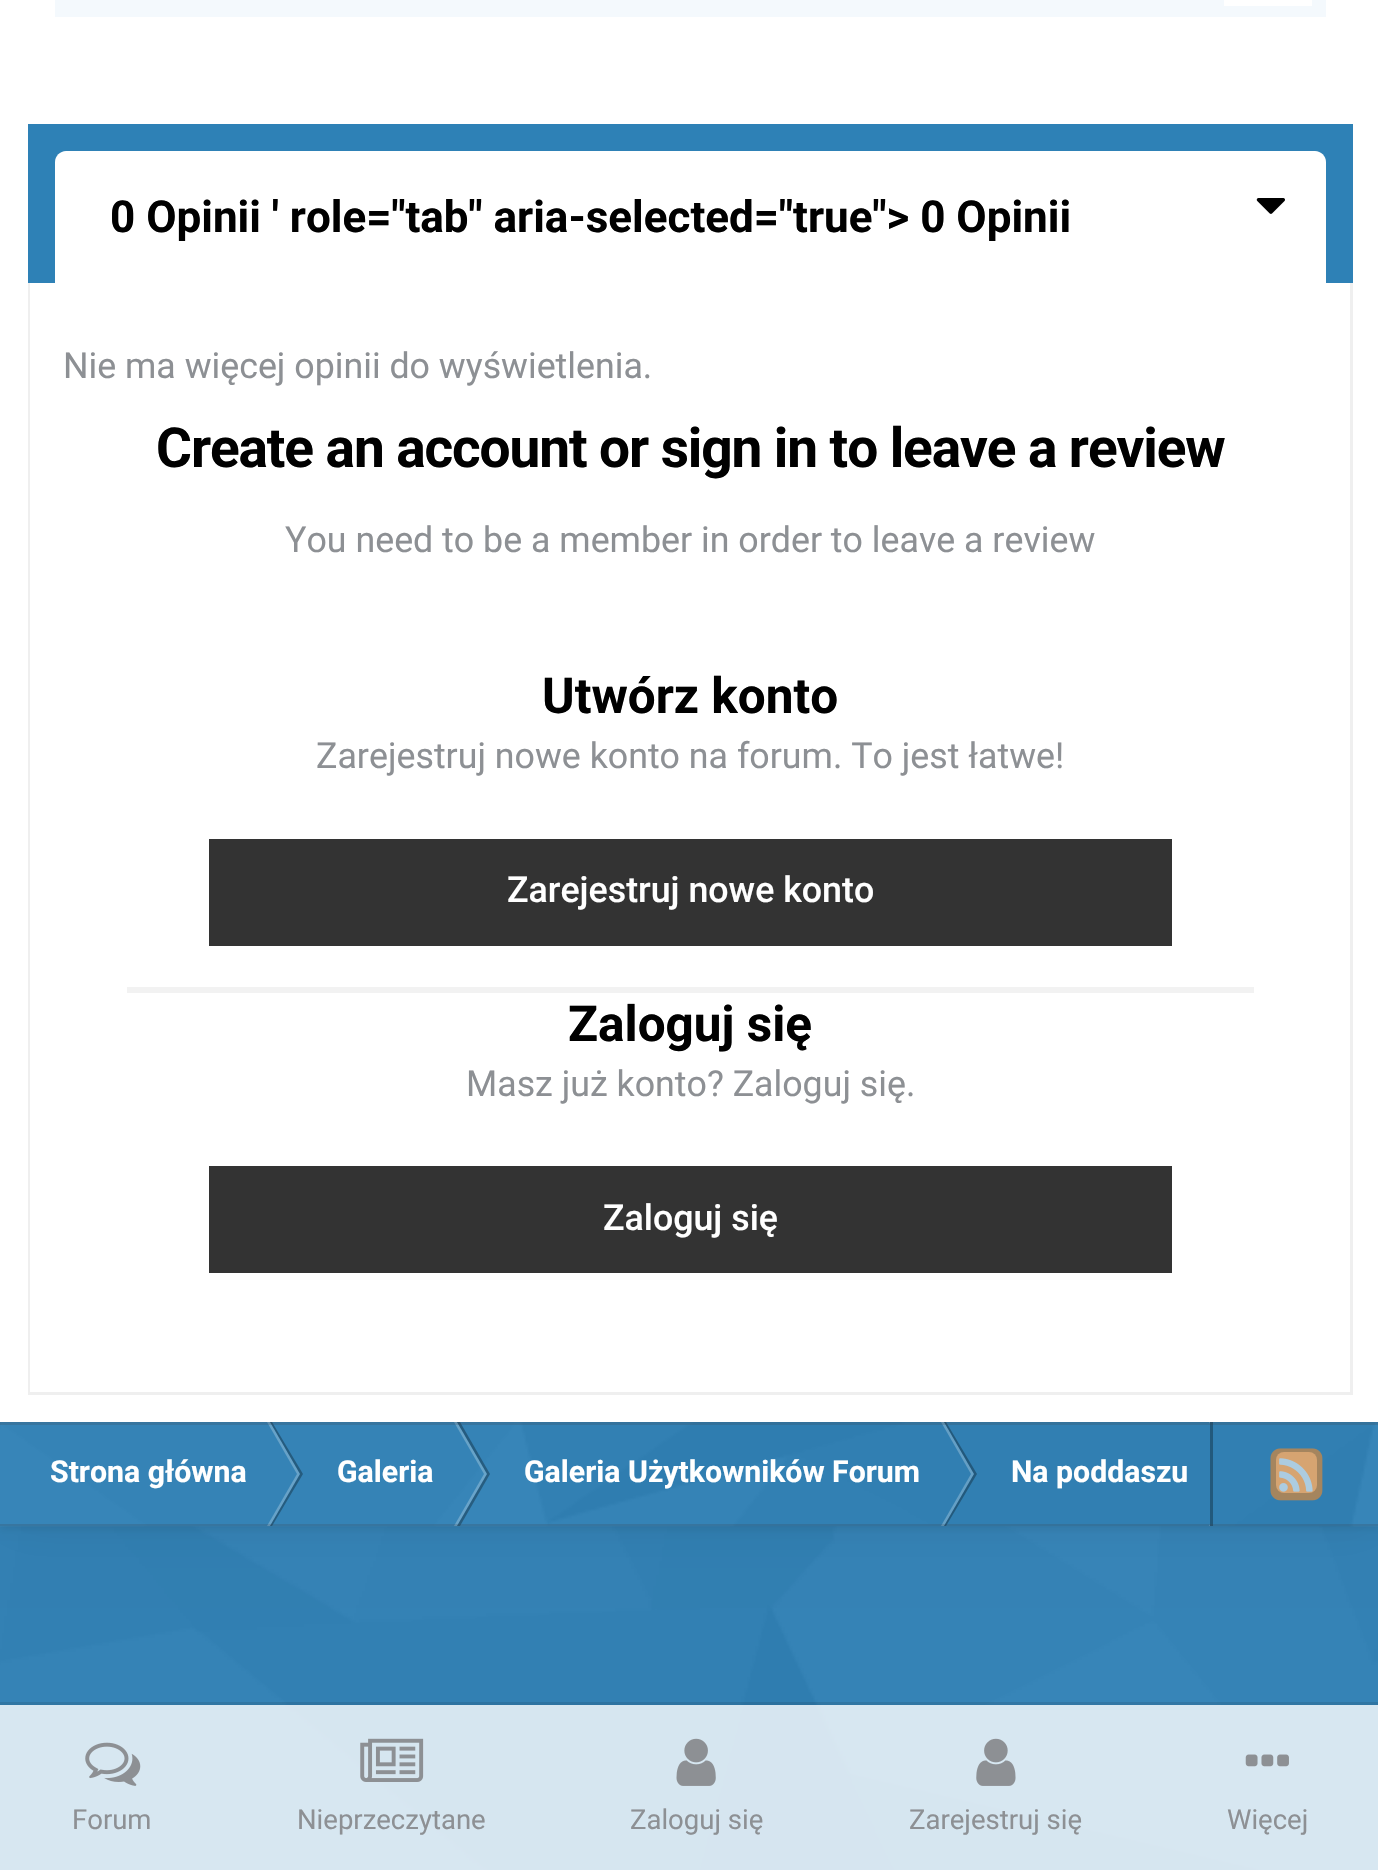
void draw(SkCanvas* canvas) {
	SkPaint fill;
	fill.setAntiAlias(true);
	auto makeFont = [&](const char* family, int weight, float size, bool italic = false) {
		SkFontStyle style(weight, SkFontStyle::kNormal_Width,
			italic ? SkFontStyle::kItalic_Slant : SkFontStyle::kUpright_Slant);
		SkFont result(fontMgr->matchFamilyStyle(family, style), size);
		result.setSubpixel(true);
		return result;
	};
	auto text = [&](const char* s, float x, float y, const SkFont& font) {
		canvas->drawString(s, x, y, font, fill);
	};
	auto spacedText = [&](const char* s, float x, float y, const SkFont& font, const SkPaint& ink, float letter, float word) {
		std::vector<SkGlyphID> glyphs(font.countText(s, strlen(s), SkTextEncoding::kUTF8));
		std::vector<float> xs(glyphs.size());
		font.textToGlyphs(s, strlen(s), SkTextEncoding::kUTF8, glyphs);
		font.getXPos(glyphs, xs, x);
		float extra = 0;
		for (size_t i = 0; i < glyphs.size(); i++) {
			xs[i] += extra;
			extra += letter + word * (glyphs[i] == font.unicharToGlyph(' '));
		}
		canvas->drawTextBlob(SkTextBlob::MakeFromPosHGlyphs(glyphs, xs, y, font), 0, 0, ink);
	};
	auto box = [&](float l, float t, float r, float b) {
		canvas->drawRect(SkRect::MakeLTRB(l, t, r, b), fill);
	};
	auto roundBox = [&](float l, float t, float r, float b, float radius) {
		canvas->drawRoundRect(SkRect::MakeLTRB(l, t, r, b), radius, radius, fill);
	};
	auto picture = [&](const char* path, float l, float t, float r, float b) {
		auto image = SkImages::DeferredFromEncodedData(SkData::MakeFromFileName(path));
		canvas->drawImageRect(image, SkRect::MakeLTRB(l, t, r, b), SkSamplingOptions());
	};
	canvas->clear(0xFF2E81B6);
	picture("image0.png", 0, 1526, 1378, 1870);
	fill.setColor(0x14000000);
	fill.setMaskFilter(SkMaskFilter::MakeBlur(kNormal_SkBlurStyle, 4));
	canvas->drawRect(SkRect::MakeLTRB(0, -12, 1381, 1529), fill);
	fill.setMaskFilter(nullptr);
	fill.setColor(0x0F000000);
	fill.setMaskFilter(SkMaskFilter::MakeBlur(kNormal_SkBlurStyle, 27.5f));
	canvas->drawRect(SkRect::MakeLTRB(0, -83, 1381, 1526), fill);
	fill.setMaskFilter(nullptr);
	fill.setColor(0xFFFFFFFF);
	box(0, 0, 1378, 1422);
	fill.setColor(0xFFF4F9FD);
	box(55, 0, 1326, 17);
	fill.setColor(0xFFFFFFFF);
	box(1224, 0, 1312, 6);
	fill.setColor(0xFF2E81B6);
	box(28, 124, 1353, 283);
	fill.setColor(0xFFFFFFFF);
	canvas->drawPath(SkPathBuilder().moveTo(66, 151).lineTo(1315, 151).cubicTo(1321, 151, 1326, 156, 1326, 162).lineTo(1326, 283).lineTo(55, 283).lineTo(55, 162).cubicTo(55, 156, 60, 151, 66, 151).close().detach(), fill);
	picture("image1.png", 1256, 198, 1285, 214);
	fill.setColor(0xFFEFEFEF);
	box(1350, 283, 1353, 1394);
	box(28, 1392, 1353, 1395);
	box(28, 283, 31, 1394);
	fill.setColor(0xFFFFFFFF);
	box(30, 283, 31, 1392);
	fill.setColor(0xFFF2F2F2);
	box(127, 987, 1254, 993);
	fill.setColor(0xFF333333);
	box(209, 839, 1172, 946);
	box(209, 1166, 1172, 1273);
	fill.setColor(0xFF2E81B6);
	box(0, 1422, 1378, 1526);
	picture("image2.png", 0, 1422, 1378, 1527);
	fill.setColor(0xFF67A2C8);
	canvas->drawPath(SkPathBuilder().moveTo(267, 1422).lineTo(270, 1422).lineTo(300, 1474).lineTo(297, 1474).close().detach(), fill);
	fill.setColor(0x4D000000);
	canvas->drawPath(SkPathBuilder().moveTo(270, 1422).lineTo(272, 1422).lineTo(303, 1474).lineTo(300, 1474).close().detach(), fill);
	fill.setColor(0xFF67A3C8);
	canvas->drawPath(SkPathBuilder().moveTo(454, 1422).lineTo(457, 1422).lineTo(487, 1474).lineTo(484, 1474).close().detach(), fill);
	fill.setColor(0x4D000000);
	canvas->drawPath(SkPathBuilder().moveTo(457, 1422).lineTo(460, 1422).lineTo(490, 1474).lineTo(487, 1474).close().detach(), fill);
	fill.setColor(0xFF649FC5);
	canvas->drawPath(SkPathBuilder().moveTo(941, 1422).lineTo(944, 1422).lineTo(974, 1474).lineTo(971, 1474).close().detach(), fill);
	fill.setColor(0x4D000000);
	canvas->drawPath(SkPathBuilder().moveTo(944, 1422).lineTo(946, 1422).lineTo(977, 1474).lineTo(974, 1474).close().detach(), fill);
	canvas->save();
	canvas->clipRect(SkRect::MakeLTRB(0, 1422, 1210, 1526));
	fill.setColor(0xFF649FC5);
	canvas->drawPath(SkPathBuilder().moveTo(1209, 1422).lineTo(1212, 1422).lineTo(1242, 1474).lineTo(1239, 1474).close().detach(), fill);
	canvas->restore();
	fill.setColor(0xFF22597C);
	box(1210, 1422, 1213, 1526);
	fill.setColor(0x333A3D40);
	box(0, 1422, 1378, 1425);
	fill.setColor(0xFF67A2C8);
	canvas->drawPath(SkPathBuilder().moveTo(267, 1526).lineTo(270, 1526).lineTo(300, 1474).lineTo(297, 1474).close().detach(), fill);
	fill.setColor(0x4D000000);
	canvas->drawPath(SkPathBuilder().moveTo(270, 1526).lineTo(272, 1526).lineTo(303, 1474).lineTo(300, 1474).close().detach(), fill);
	fill.setColor(0xFF69A4CA);
	canvas->drawPath(SkPathBuilder().moveTo(454, 1526).lineTo(457, 1526).lineTo(487, 1474).lineTo(484, 1474).close().detach(), fill);
	fill.setColor(0x4D000000);
	canvas->drawPath(SkPathBuilder().moveTo(457, 1526).lineTo(460, 1526).lineTo(490, 1474).lineTo(487, 1474).close().detach(), fill);
	fill.setColor(0xFF649FC5);
	canvas->drawPath(SkPathBuilder().moveTo(941, 1526).lineTo(944, 1526).lineTo(974, 1474).lineTo(971, 1474).close().detach(), fill);
	fill.setColor(0x4D000000);
	canvas->drawPath(SkPathBuilder().moveTo(944, 1526).lineTo(946, 1526).lineTo(977, 1474).lineTo(974, 1474).close().detach(), fill);
	canvas->save();
	canvas->clipRect(SkRect::MakeLTRB(0, 1422, 1210, 1526));
	fill.setColor(0xFF649FC5);
	canvas->drawPath(SkPathBuilder().moveTo(1209, 1526).lineTo(1212, 1526).lineTo(1242, 1474).lineTo(1239, 1474).close().detach(), fill);
	canvas->restore();
	fill.setColor(0x333A3D40);
	box(0, 1524, 1378, 1526);
	fill.setColor(0xFFACCCE0);
	roundBox(1276, 1452, 1317, 1493, 8);
	picture("image3.png", 1270, 1448, 1323, 1501);
	fill.setColor(0x1A000000);
	canvas->drawPath(SkPathBuilder().moveTo(0, 1702).lineTo(0, 1705).lineTo(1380, 1705).lineTo(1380, 1867).lineTo(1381, 1867).lineTo(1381, 1702).close().detach(), fill);
	fill.setColor(0xCCFFFFFF);
	box(0, 1705, 1378, 1870);
	picture("image4.png", 85, 1742, 141, 1786);
	picture("image5.png", 360, 1738, 424, 1782);
	picture("image6.png", 676, 1738, 716, 1786);
	picture("image7.png", 976, 1738, 1016, 1786);
	picture("image8.png", 1245, 1754, 1289, 1767);
	auto font1 = makeFont("Roboto", 700, 44);
	fill.setColor(0xFF000000);
	text("0 Opinii ' role=\"tab\" aria-selected=\"true\"> 0 Opinii", 110, 232, font1);
	auto font2 = makeFont("Roboto", 400, 35.75f);
	fill.setColor(0xFF8D9094);
	text("Nie ma więcej opinii do wyświetlenia.", 63, 378, font2);
	auto font3 = makeFont("Roboto", 700, 55);
	fill.setColor(0xFF000000);
	spacedText("Create an account or sign in to leave a review", 156, 467, font3, fill, -1.1f, 0);
	fill.setColor(0xFF8D9094);
	text("You need to be a member in order to leave a review", 285, 552, font2);
	auto font4 = makeFont("Roboto", 700, 49.5f);
	fill.setColor(0xFF000000);
	text("Utwórz konto", 542, 713, font4);
	fill.setColor(0xFF8D9094);
	text("Zarejestruj nowe konto na forum. To jest łatwe!", 316, 768, font2);
	auto font5 = makeFont("Roboto", 500, 35.75f);
	fill.setColor(0xFFFFFFFF);
	text("Zarejestruj nowe konto", 507, 902, font5);
	fill.setColor(0xFF000000);
	text("Zaloguj się", 568, 1041, font4);
	fill.setColor(0xFF8D9094);
	text("Masz już konto? Zaloguj się.", 466, 1096, font2);
	fill.setColor(0xFFFFFFFF);
	text("Zaloguj się", 603, 1230, font5);
	auto font6 = makeFont("Roboto", 700, 30.25f);
	text("Strona główna", 50, 1482, font6);
	text("Galeria", 337, 1482, font6);
	text("Galeria Użytkowników Forum", 524, 1482, font6);
	text("Na poddaszu", 1011, 1482, font6);
	auto font7 = makeFont("Roboto", 400, 27.5f);
	fill.setColor(0xFF8D9094);
	text("Forum", 72, 1829, font7);
	text("Nieprzeczytane", 297, 1829, font7);
	text("Zaloguj się", 630, 1829, font7);
	text("Zarejestruj się", 909, 1829, font7);
	text("Więcej", 1227, 1829, font7);
}
